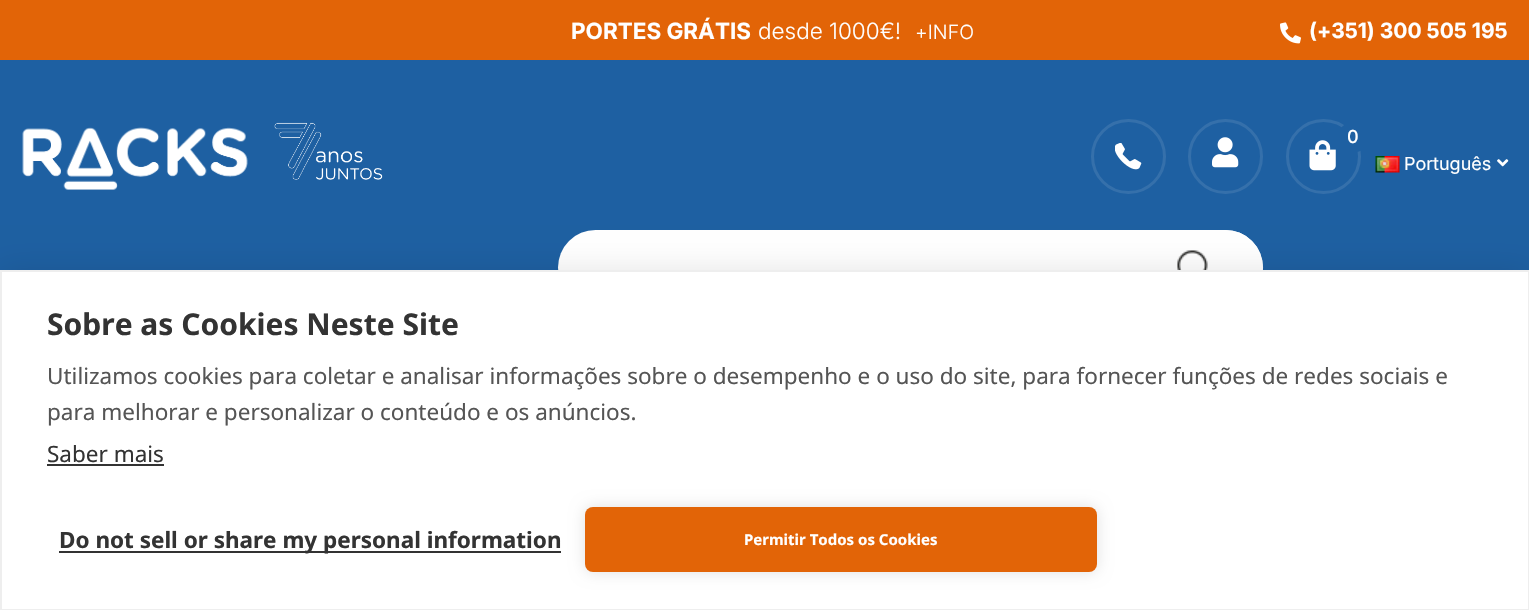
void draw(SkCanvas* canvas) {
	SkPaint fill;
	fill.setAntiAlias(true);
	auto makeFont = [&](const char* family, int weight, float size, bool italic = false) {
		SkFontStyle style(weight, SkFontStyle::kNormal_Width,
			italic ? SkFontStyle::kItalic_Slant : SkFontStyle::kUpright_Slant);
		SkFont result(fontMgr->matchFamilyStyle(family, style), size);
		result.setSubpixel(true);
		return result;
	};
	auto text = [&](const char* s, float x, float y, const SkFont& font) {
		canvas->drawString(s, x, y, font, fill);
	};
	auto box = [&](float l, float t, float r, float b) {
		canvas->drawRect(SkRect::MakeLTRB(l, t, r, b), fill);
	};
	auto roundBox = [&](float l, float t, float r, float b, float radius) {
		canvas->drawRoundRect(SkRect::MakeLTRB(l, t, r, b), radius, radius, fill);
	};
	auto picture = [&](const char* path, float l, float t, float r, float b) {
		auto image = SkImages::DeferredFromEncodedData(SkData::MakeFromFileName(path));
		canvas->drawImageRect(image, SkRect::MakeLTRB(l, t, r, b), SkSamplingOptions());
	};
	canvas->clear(0xFFE26407);
	picture("image0.png", 1280, 22, 1301, 44);
	fill.setColor(0xFF1E60A2);
	box(0, 60, 1529, 270);
	picture("image1.png", 22, 127, 248, 190);
	picture("image2.png", 274, 122, 383, 180);
	fill.setStyle(SkPaint::kStroke_Style);
	fill.setStrokeWidth(3);
	fill.setColor(0xFF3570AB);
	canvas->drawCircle(1128.5f, 156.5f, 36, fill);
	picture("image3.png", 1115, 143, 1142, 170);
	canvas->drawCircle(1225.5f, 156.5f, 36, fill);
	picture("image4.png", 1212, 137, 1239, 168);
	canvas->drawCircle(1323.5f, 156.5f, 36, fill);
	canvas->save();
	canvas->clipRect(SkRect::MakeLTRB(1286, 83, 1361, 231));
	fill.setStyle(SkPaint::kFill_Style);
	fill.setColor(0xFF1E60A2);
	roundBox(1338, 122, 1370, 152, 15);
	canvas->restore();
	picture("image5.png", 1309, 140, 1336, 171);
	picture("image6.png", 1375, 156, 1400, 173);
	picture("image7.png", 1497, 159, 1509, 167);
	fill.setColor(0xFFFFFFFF);
	roundBox(558, 230, 1263, 305, 37.5f);
	roundBox(1128, 230, 1263, 305, 37.5f);
	picture("image8.png", 1177, 250, 1208, 270);
	fill.setColor(0x1A000000);
	fill.setMaskFilter(SkMaskFilter::MakeBlur(kNormal_SkBlurStyle, 15));
	canvas->drawRect(SkRect::MakeLTRB(0, 270, 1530, 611), fill);
	fill.setMaskFilter(nullptr);
	fill.setColor(0xFFFFFFFF);
	canvas->drawRect(SkRect::MakeLTRB(1, 271, 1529, 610), fill);
	fill.setStyle(SkPaint::kStroke_Style);
	fill.setStrokeWidth(2);
	fill.setColor(0xFFEEEEEE);
	canvas->drawRect(SkRect::MakeLTRB(1, 271, 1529, 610), fill);
	fill.setStyle(SkPaint::kFill_Style);
	fill.setColor(0xFF333333);
	box(47, 464, 164, 466);
	box(59, 551, 561, 553);
	fill.setColor(0x1F000000);
	fill.setMaskFilter(SkMaskFilter::MakeBlur(kNormal_SkBlurStyle, 7.5f));
	canvas->drawRoundRect(SkRect::MakeLTRB(585, 507, 1097, 572), 8, 8, fill);
	fill.setMaskFilter(nullptr);
	fill.setColor(0xFFE26407);
	roundBox(585, 507, 1097, 572, 8);
	auto font1 = makeFont("Inter", 700, 22.5f);
	fill.setColor(0xFFFFFFFF);
	text("PORTES GRÁTIS", 571, 39, font1);
	auto font2 = makeFont("Inter", 300, 22.5f);
	text("desde 1000€!", 758, 39, font2);
	auto font3 = makeFont("Inter", 300, 19.5f);
	text("+INFO", 915, 39, font3);
	auto font4 = makeFont("Inter", 700, 21);
	text("(+351) 300 505 195", 1309, 38, font4);
	auto font5 = makeFont("Inter", 500, 18);
	text("0", 1347, 143, font5);
	auto font6 = makeFont("Inter", 400, 18);
	text("Português", 1404, 170, font6);
	auto font7 = makeFont("Noto Sans", 700, 30);
	fill.setColor(0xFF333333);
	text("Sobre as Cookies Neste Site", 47, 335, font7);
	auto font8 = makeFont("Noto Sans", 400, 22.5f);
	fill.setColor(0xFF555555);
	text("Utilizamos cookies para coletar e analisar informações sobre o desempenho e o uso do site, para fornecer funções de redes sociais e", 47, 384, font8);
	text("para melhorar e personalizar o conteúdo e os anúncios.", 47, 420, font8);
	fill.setColor(0xFF333333);
	text("Saber mais", 47, 462, font8);
	auto font9 = makeFont("Noto Sans", 700, 22.5f);
	text("Do not sell or share my personal information", 59, 548, font9);
	auto font10 = makeFont("Noto Sans", 700, 15);
	fill.setColor(0xFFFFFFFF);
	text("Permitir Todos os Cookies", 744, 545, font10);
}
